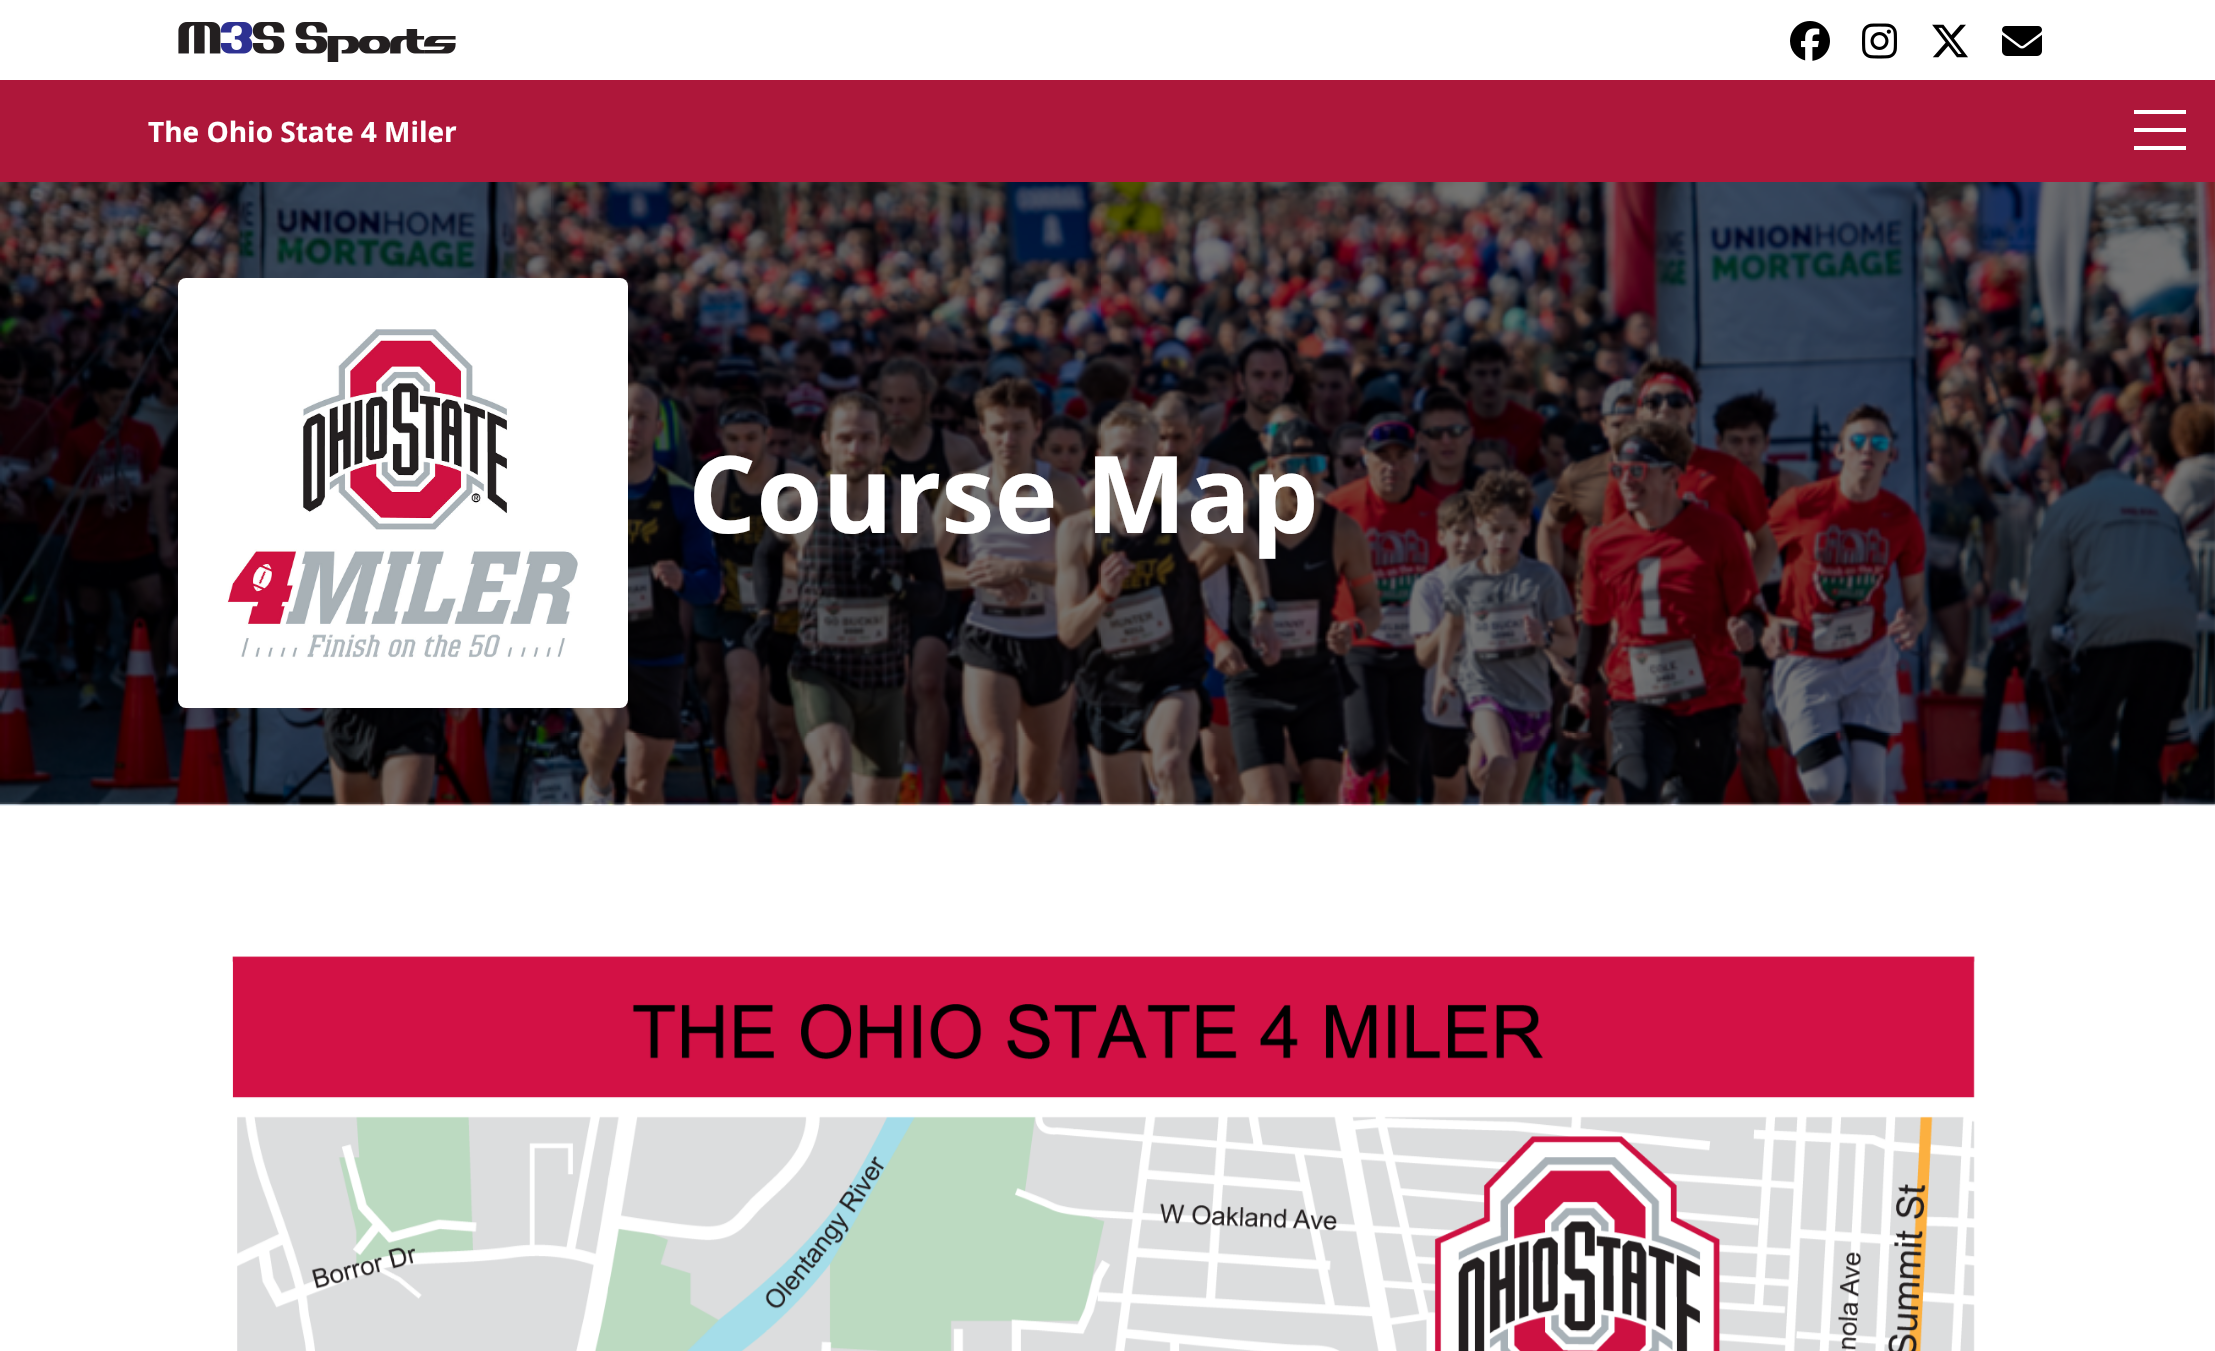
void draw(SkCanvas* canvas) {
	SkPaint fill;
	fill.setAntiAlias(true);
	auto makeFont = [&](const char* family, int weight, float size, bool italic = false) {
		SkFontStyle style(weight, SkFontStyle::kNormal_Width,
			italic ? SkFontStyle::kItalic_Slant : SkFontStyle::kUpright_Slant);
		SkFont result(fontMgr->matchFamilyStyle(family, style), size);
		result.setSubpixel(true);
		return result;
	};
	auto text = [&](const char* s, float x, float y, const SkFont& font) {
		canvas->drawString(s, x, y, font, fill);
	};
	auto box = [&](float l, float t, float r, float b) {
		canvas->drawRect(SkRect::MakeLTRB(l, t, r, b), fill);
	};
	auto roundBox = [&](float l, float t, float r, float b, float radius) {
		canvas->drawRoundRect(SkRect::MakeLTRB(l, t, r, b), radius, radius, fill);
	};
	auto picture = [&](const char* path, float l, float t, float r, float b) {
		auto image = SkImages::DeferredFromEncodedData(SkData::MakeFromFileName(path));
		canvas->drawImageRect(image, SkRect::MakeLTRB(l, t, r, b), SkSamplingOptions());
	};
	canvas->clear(0xFFFFFFFF);
	fill.setColor(0xFF757575);
	box(0, 182, 2215, 804);
	picture("image0.png", 178, 22, 456, 62);
	picture("image1.png", 1790, 21, 1830, 61);
	picture("image2.png", 1862, 23, 1897, 59);
	picture("image3.png", 1932, 24, 1968, 58);
	picture("image4.png", 2002, 26, 2042, 56);
	fill.setColor(0xFFAE173A);
	box(0, 80, 2215, 182);
	fill.setColor(0xFFFFFFFF);
	box(2134, 110, 2186, 114);
	box(2134, 128, 2186, 132);
	box(2134, 146, 2186, 150);
	picture("image5.png", 0, 182, 2215, 806);
	roundBox(178, 278, 628, 708, 8);
	picture("image6.png", 227, 329, 578, 658);
	picture("image7.png", 232, 956, 1975, 1351);
	auto font1 = makeFont("Open Sans", 700, 28);
	text("The Ohio State 4 Miler", 148, 142, font1);
	auto font2 = makeFont("Open Sans", 700, 107);
	text("Course Map", 688, 533, font2);
}
